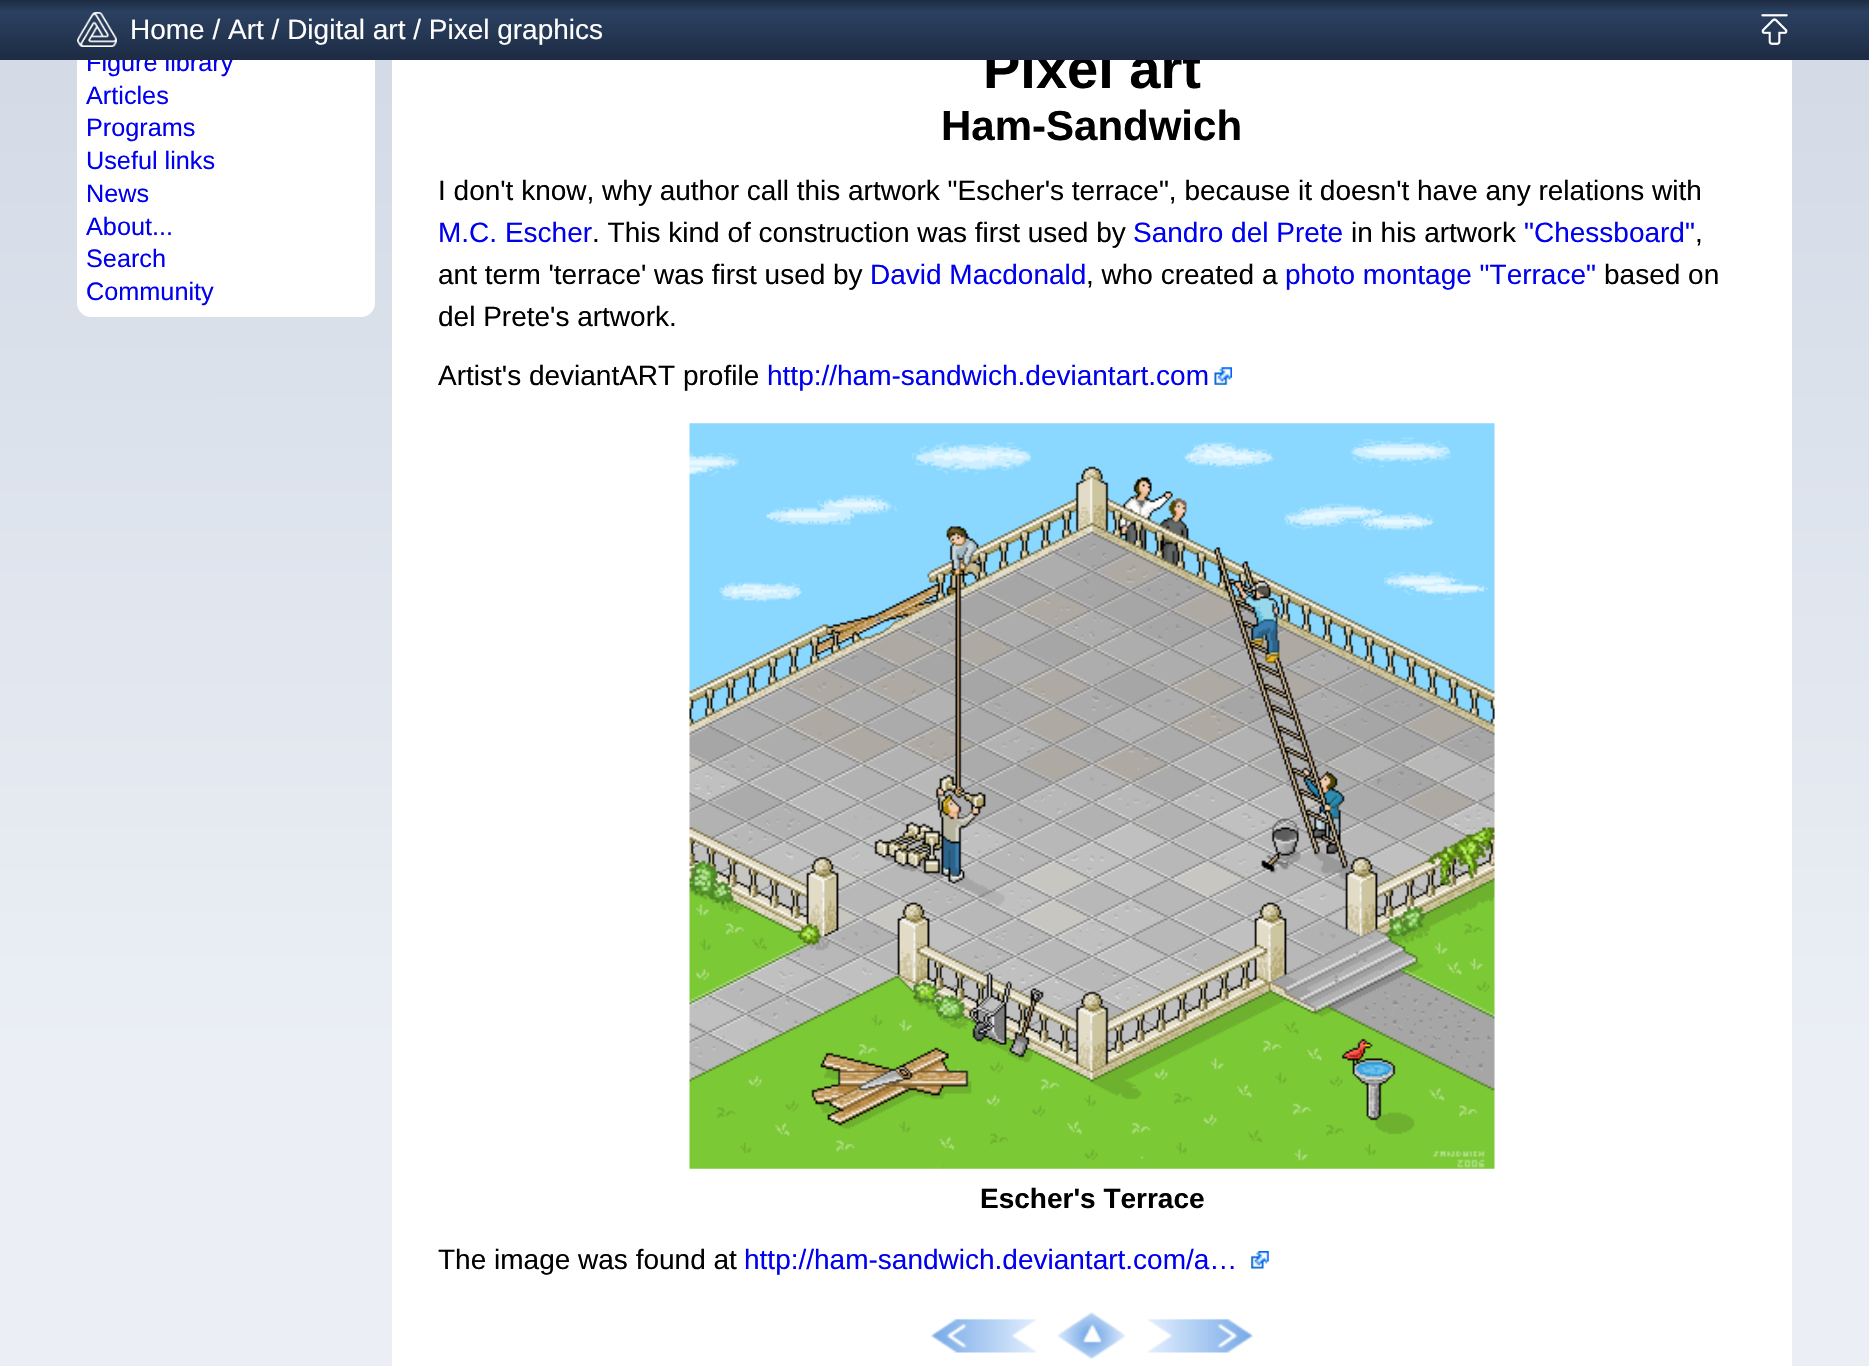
void draw(SkCanvas* canvas) {
	SkPaint fill;
	fill.setAntiAlias(true);
	auto makeFont = [&](const char* family, int weight, float size, bool italic = false) {
		SkFontStyle style(weight, SkFontStyle::kNormal_Width,
			italic ? SkFontStyle::kItalic_Slant : SkFontStyle::kUpright_Slant);
		SkFont result(fontMgr->matchFamilyStyle(family, style), size);
		result.setSubpixel(true);
		return result;
	};
	auto text = [&](const char* s, float x, float y, const SkFont& font) {
		canvas->drawString(s, x, y, font, fill);
	};
	auto box = [&](float l, float t, float r, float b) {
		canvas->drawRect(SkRect::MakeLTRB(l, t, r, b), fill);
	};
	auto roundBox = [&](float l, float t, float r, float b, float radius) {
		canvas->drawRoundRect(SkRect::MakeLTRB(l, t, r, b), radius, radius, fill);
	};
	auto picture = [&](const char* path, float l, float t, float r, float b) {
		auto image = SkImages::DeferredFromEncodedData(SkData::MakeFromFileName(path));
		canvas->drawImageRect(image, SkRect::MakeLTRB(l, t, r, b), SkSamplingOptions());
	};
	canvas->clear(0xFFFFFFFF);
	{
		const SkColor colors[] = {0xFFCED6E3, 0xFFEBEFF5};
		const float stops[] = {0.09f, 0.73f};
		const SkPoint ends[] = {{934, -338}, {935, 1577}};
		fill.setShader(SkGradientShader::MakeLinear(ends, colors, stops, 2, SkTileMode::kClamp));
		fill.setAlpha(255);
	}
	box(0, 60, 1869, 1366);
	fill.setShader(nullptr);
	fill.setColor(0xFFFFFFFF);
	roundBox(77, -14, 375, 317, 14);
	box(392, 60, 1792, 1366);
	picture("image2.png", 1214, 367, 1232, 385);
	picture("image3.png", 689, 423, 1495, 1169);
	picture("image4.png", 1251, 1251, 1269, 1269);
	picture("image5.png", 931, 1318, 1036, 1353);
	picture("image6.png", 1057, 1312, 1126, 1360);
	picture("image7.png", 1148, 1318, 1253, 1353);
	auto font1 = makeFont("Liberation Sans", 400, 25.25f);
	fill.setColor(0xFF0000EE);
	text("Figure library", 86, 71, font1);
	text("Articles", 86, 104, font1);
	text("Programs", 86, 136, font1);
	text("Useful links", 86, 169, font1);
	text("News", 86, 202, font1);
	text("About...", 86, 235, font1);
	text("Search", 86, 267, font1);
	text("Community", 86, 300, font1);
	auto font2 = makeFont("Liberation Sans", 700, 56);
	fill.setColor(0xFF000000);
	text("Pixel art", 983, 88, font2);
	{
		const SkColor colors[] = {0xFF1D2B43, 0xFF2B4161, 0xFF1D2B43};
		const float stops[] = {0, 0.2f, 1};
		const SkPoint ends[] = {{935, 0}, {935, 60}};
		fill.setShader(SkGradientShader::MakeLinear(ends, colors, stops, 3, SkTileMode::kClamp));
		fill.setAlpha(255);
	}
	box(0, 0, 1869, 60);
	picture("image1.png", 1761, 14, 1788, 46);
	picture("image0.png", 77, 12, 117, 47);
	auto font3 = makeFont("Liberation Sans", 400, 28);
	fill.setShader(nullptr);
	fill.setColor(0xFFFFFFFF);
	text("Home / Art / Digital art / Pixel graphics", 130, 39, font3);
	auto font4 = makeFont("Liberation Sans", 700, 42);
	fill.setColor(0xFF000000);
	text("Ham-Sandwich", 941, 140, font4);
	text("I don't know, why author call this artwork \"Escher's terrace\", because it doesn't have any relations with", 438, 200, font3);
	fill.setColor(0xFF0000EE);
	text("M.C. Escher", 438, 242, font3);
	fill.setColor(0xFF000000);
	text(". This kind of construction was first used by", 592, 242, font3);
	fill.setColor(0xFF0000EE);
	text("Sandro del Prete", 1133, 242, font3);
	fill.setColor(0xFF000000);
	text("in his artwork", 1351, 242, font3);
	fill.setColor(0xFF0000EE);
	text("\"Chessboard\"", 1524, 242, font3);
	fill.setColor(0xFF000000);
	text(",", 1695, 242, font3);
	text("ant term 'terrace' was first used by", 438, 284, font3);
	fill.setColor(0xFF0000EE);
	text("David Macdonald", 870, 284, font3);
	fill.setColor(0xFF000000);
	text(", who created a", 1086, 284, font3);
	fill.setColor(0xFF0000EE);
	text("photo montage \"Terrace\"", 1285, 284, font3);
	fill.setColor(0xFF000000);
	text("based on", 1604, 284, font3);
	text("del Prete's artwork.", 438, 326, font3);
	text("Artist's deviantART profile", 438, 385, font3);
	fill.setColor(0xFF0000EE);
	text("http://ham-sandwich.deviantart.com", 767, 385, font3);
	auto font5 = makeFont("Liberation Sans", 700, 28);
	fill.setColor(0xFF000000);
	text("Escher's Terrace", 980, 1208, font5);
	text("The image was found at", 438, 1269, font3);
	fill.setColor(0xFF0000EE);
	text("http://ham-sandwich.deviantart.com/a…", 744, 1269, font3);
}
